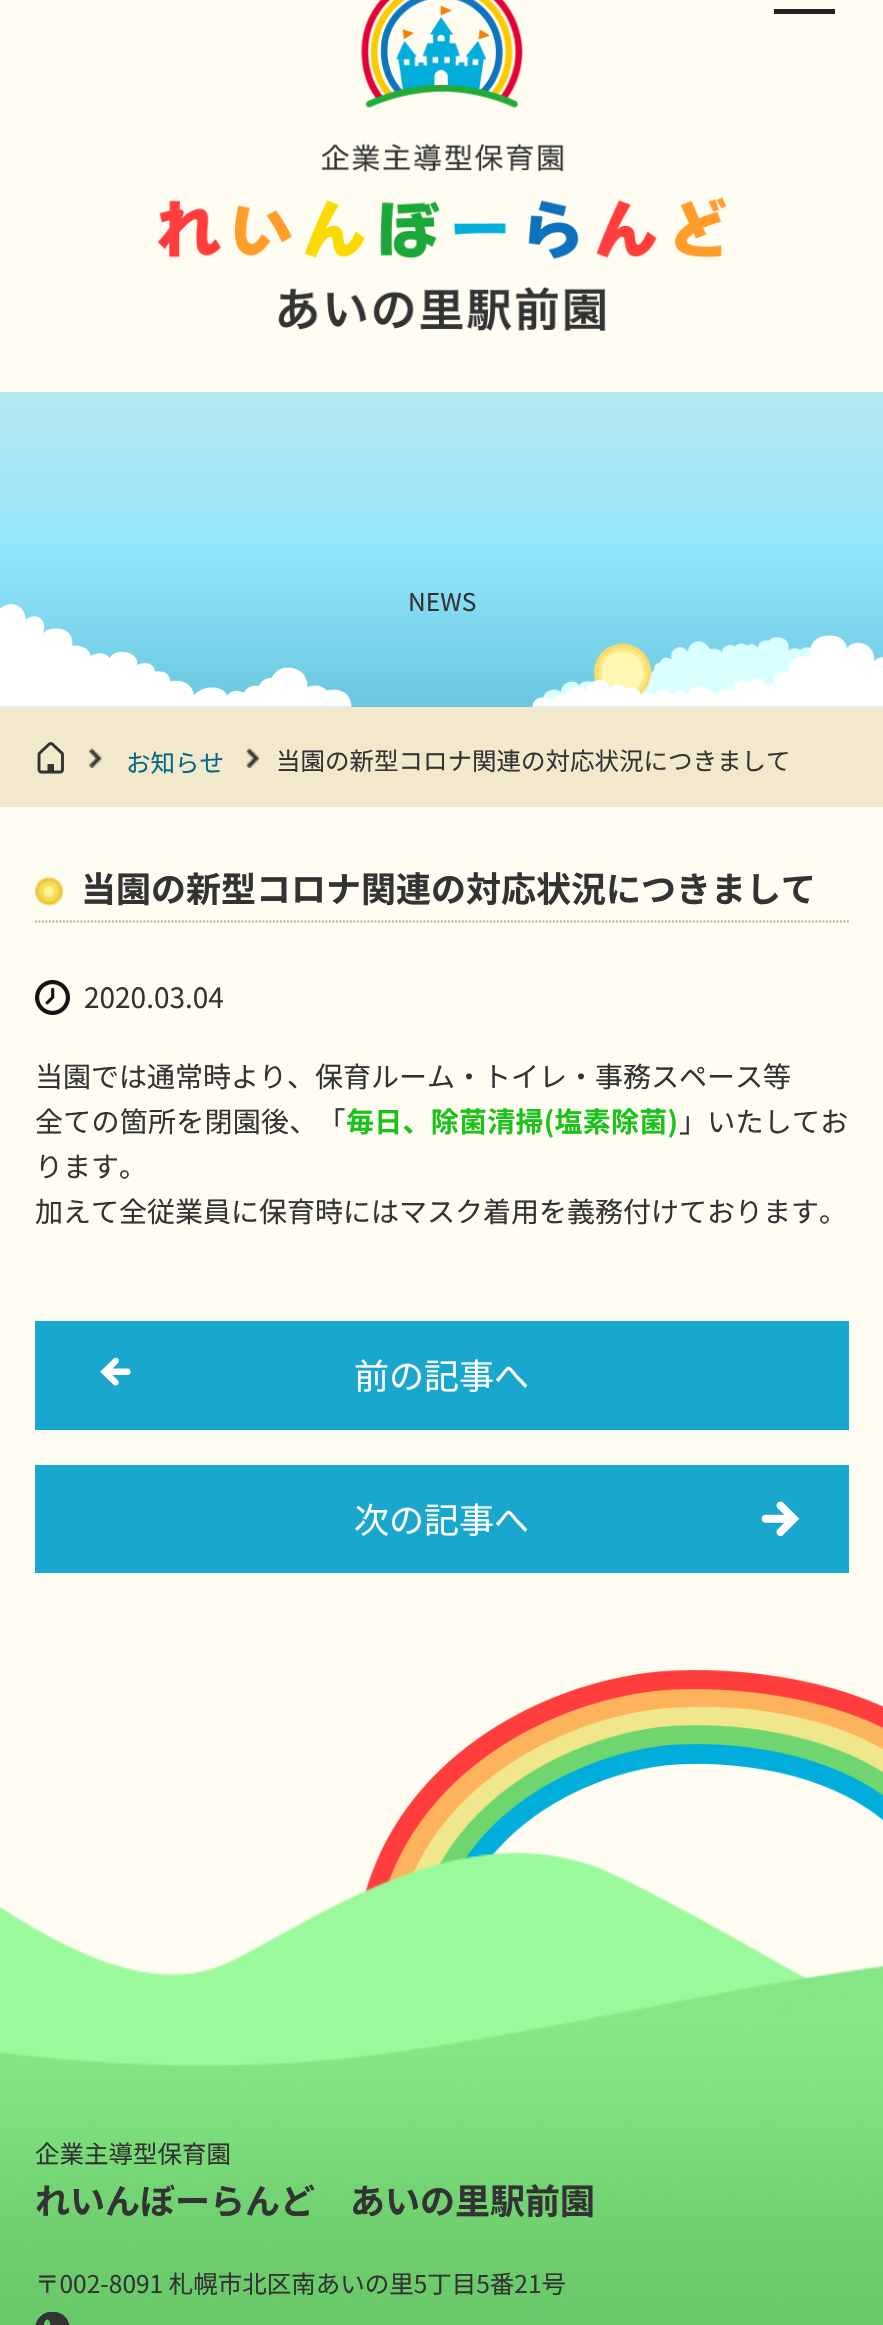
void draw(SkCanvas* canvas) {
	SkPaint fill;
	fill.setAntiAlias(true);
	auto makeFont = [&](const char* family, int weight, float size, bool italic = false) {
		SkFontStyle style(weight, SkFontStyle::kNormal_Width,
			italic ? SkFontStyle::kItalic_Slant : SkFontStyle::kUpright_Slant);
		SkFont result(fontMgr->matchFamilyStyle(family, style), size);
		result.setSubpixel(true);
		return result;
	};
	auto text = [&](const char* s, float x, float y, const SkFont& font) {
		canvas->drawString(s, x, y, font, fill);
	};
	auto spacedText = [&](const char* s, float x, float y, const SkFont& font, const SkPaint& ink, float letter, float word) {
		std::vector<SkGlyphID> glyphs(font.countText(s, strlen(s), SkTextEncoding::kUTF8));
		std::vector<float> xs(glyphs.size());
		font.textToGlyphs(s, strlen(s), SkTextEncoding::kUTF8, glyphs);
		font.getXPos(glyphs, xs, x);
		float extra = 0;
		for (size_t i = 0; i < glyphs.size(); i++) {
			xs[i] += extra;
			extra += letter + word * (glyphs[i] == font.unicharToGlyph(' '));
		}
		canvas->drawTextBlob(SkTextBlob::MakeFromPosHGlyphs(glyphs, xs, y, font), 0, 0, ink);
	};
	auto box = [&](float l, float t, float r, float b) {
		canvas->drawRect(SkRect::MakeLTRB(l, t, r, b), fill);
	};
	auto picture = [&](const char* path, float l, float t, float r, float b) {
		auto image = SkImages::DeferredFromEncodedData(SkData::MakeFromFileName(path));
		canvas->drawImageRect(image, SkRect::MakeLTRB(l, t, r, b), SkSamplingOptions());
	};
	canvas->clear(0xFFFFFCF2);
	picture("image0.png", 158, 0, 726, 331);
	fill.setColor(0xFF222222);
	box(774, 9, 835, 14);
	{
		const SkColor colors[] = {0xFFB7E7F1, 0xFF92E6FB, 0xFF6AC7DF};
		const float stops[] = {0.01f, 0.5f, 1};
		const SkPoint ends[] = {{442, 392}, {442, 707}};
		fill.setShader(SkGradientShader::MakeLinear(ends, colors, stops, 3, SkTileMode::kClamp));
		fill.setAlpha(255);
	}
	box(0, 392, 883, 707);
	picture("image1.png", 0, 604, 352, 707);
	picture("image2.png", 532, 635, 883, 707);
	fill.setShader(nullptr);
	fill.setColor(0xFFF2E9CD);
	box(0, 707, 883, 807);
	picture("image3.png", 37, 742, 64, 774);
	picture("image4.png", 89, 748, 102, 768);
	picture("image5.png", 246, 748, 259, 768);
	fill.setStyle(SkPaint::kStroke_Style);
	fill.setStrokeWidth(1.8f);
	fill.setColor(0xFFAFA588);
	fill.setPathEffect(SkDashPathEffect::Make({{1.75f, 1.75f}}, 0));
	canvas->drawPath(SkPathBuilder().moveTo(35, 921.5f).lineTo(849, 921.5f).detach(), fill);
	fill.setPathEffect(nullptr);
	picture("image6.png", 35, 876, 63, 907);
	picture("image7.png", 35, 980, 70, 1015);
	fill.setStyle(SkPaint::kFill_Style);
	fill.setColor(0xFF19A7CD);
	box(35, 1321, 849, 1430);
	picture("image8.png", 100, 1358, 131, 1386);
	box(35, 1465, 849, 1573);
	picture("image9.png", 761, 1501, 800, 1536);
	picture("image11.png", 364, 1669, 883, 1894);
	picture("image10.png", 0, 1852, 883, 2325);
	picture("image12.png", 35, 2312, 70, 2325);
	auto font1 = makeFont("Noto Sans", 100, 63);
	fill.setColor(0xFF333333);
	text("お知らせ", 316, 554, font1);
	auto font2 = makeFont("Noto Sans JP", 400, 24.5f);
	text("NEWS", 408, 611, font2);
	fill.setColor(0xFF006884);
	text("お知らせ", 126, 772, font2);
	fill.setColor(0xFF333333);
	text("当園の新型コロナ関連の対応状況につきまして", 276, 770, font2);
	auto font3 = makeFont("Noto Sans JP", 700, 35);
	text("当園の新型コロナ関連の対応状況につきまして", 81, 902, font3);
	auto font4 = makeFont("Noto Sans JP", 400, 28);
	text("2020.03.04", 84, 1008, font4);
	text("当園では通常時より、保育ルーム・トイレ・事務スペース等", 35, 1087, font4);
	spacedText("全ての箇所を閉園後、「", 35, 1132, font4, fill, 0.25f, 0);
	auto font5 = makeFont("Noto Sans JP", 700, 28);
	fill.setColor(0xFF1BC21B);
	spacedText("毎日、除菌清掃(塩素除菌)", 346, 1132, font5, fill, 0.25f, 0);
	fill.setColor(0xFF333333);
	spacedText("」いたしてお", 679, 1132, font4, fill, 0.25f, 0);
	text("ります。", 35, 1177, font4);
	text("加えて全従業員に保育時にはマスク着用を義務付けております。", 35, 1222, font4);
	auto font6 = makeFont("Noto Sans JP", 400, 35);
	fill.setColor(0xFFFFFFFF);
	text("前の記事へ", 354, 1389, font6);
	text("次の記事へ", 354, 1533, font6);
	fill.setColor(0xFF333333);
	text("企業主導型保育園", 35, 2163, font2);
	text("れいんぼーらんど　あいの里駅前園", 35, 2214, font3);
	text("〒002-8091 札幌市北区南あいの里5丁目5番21号", 35, 2293, font2);
}
